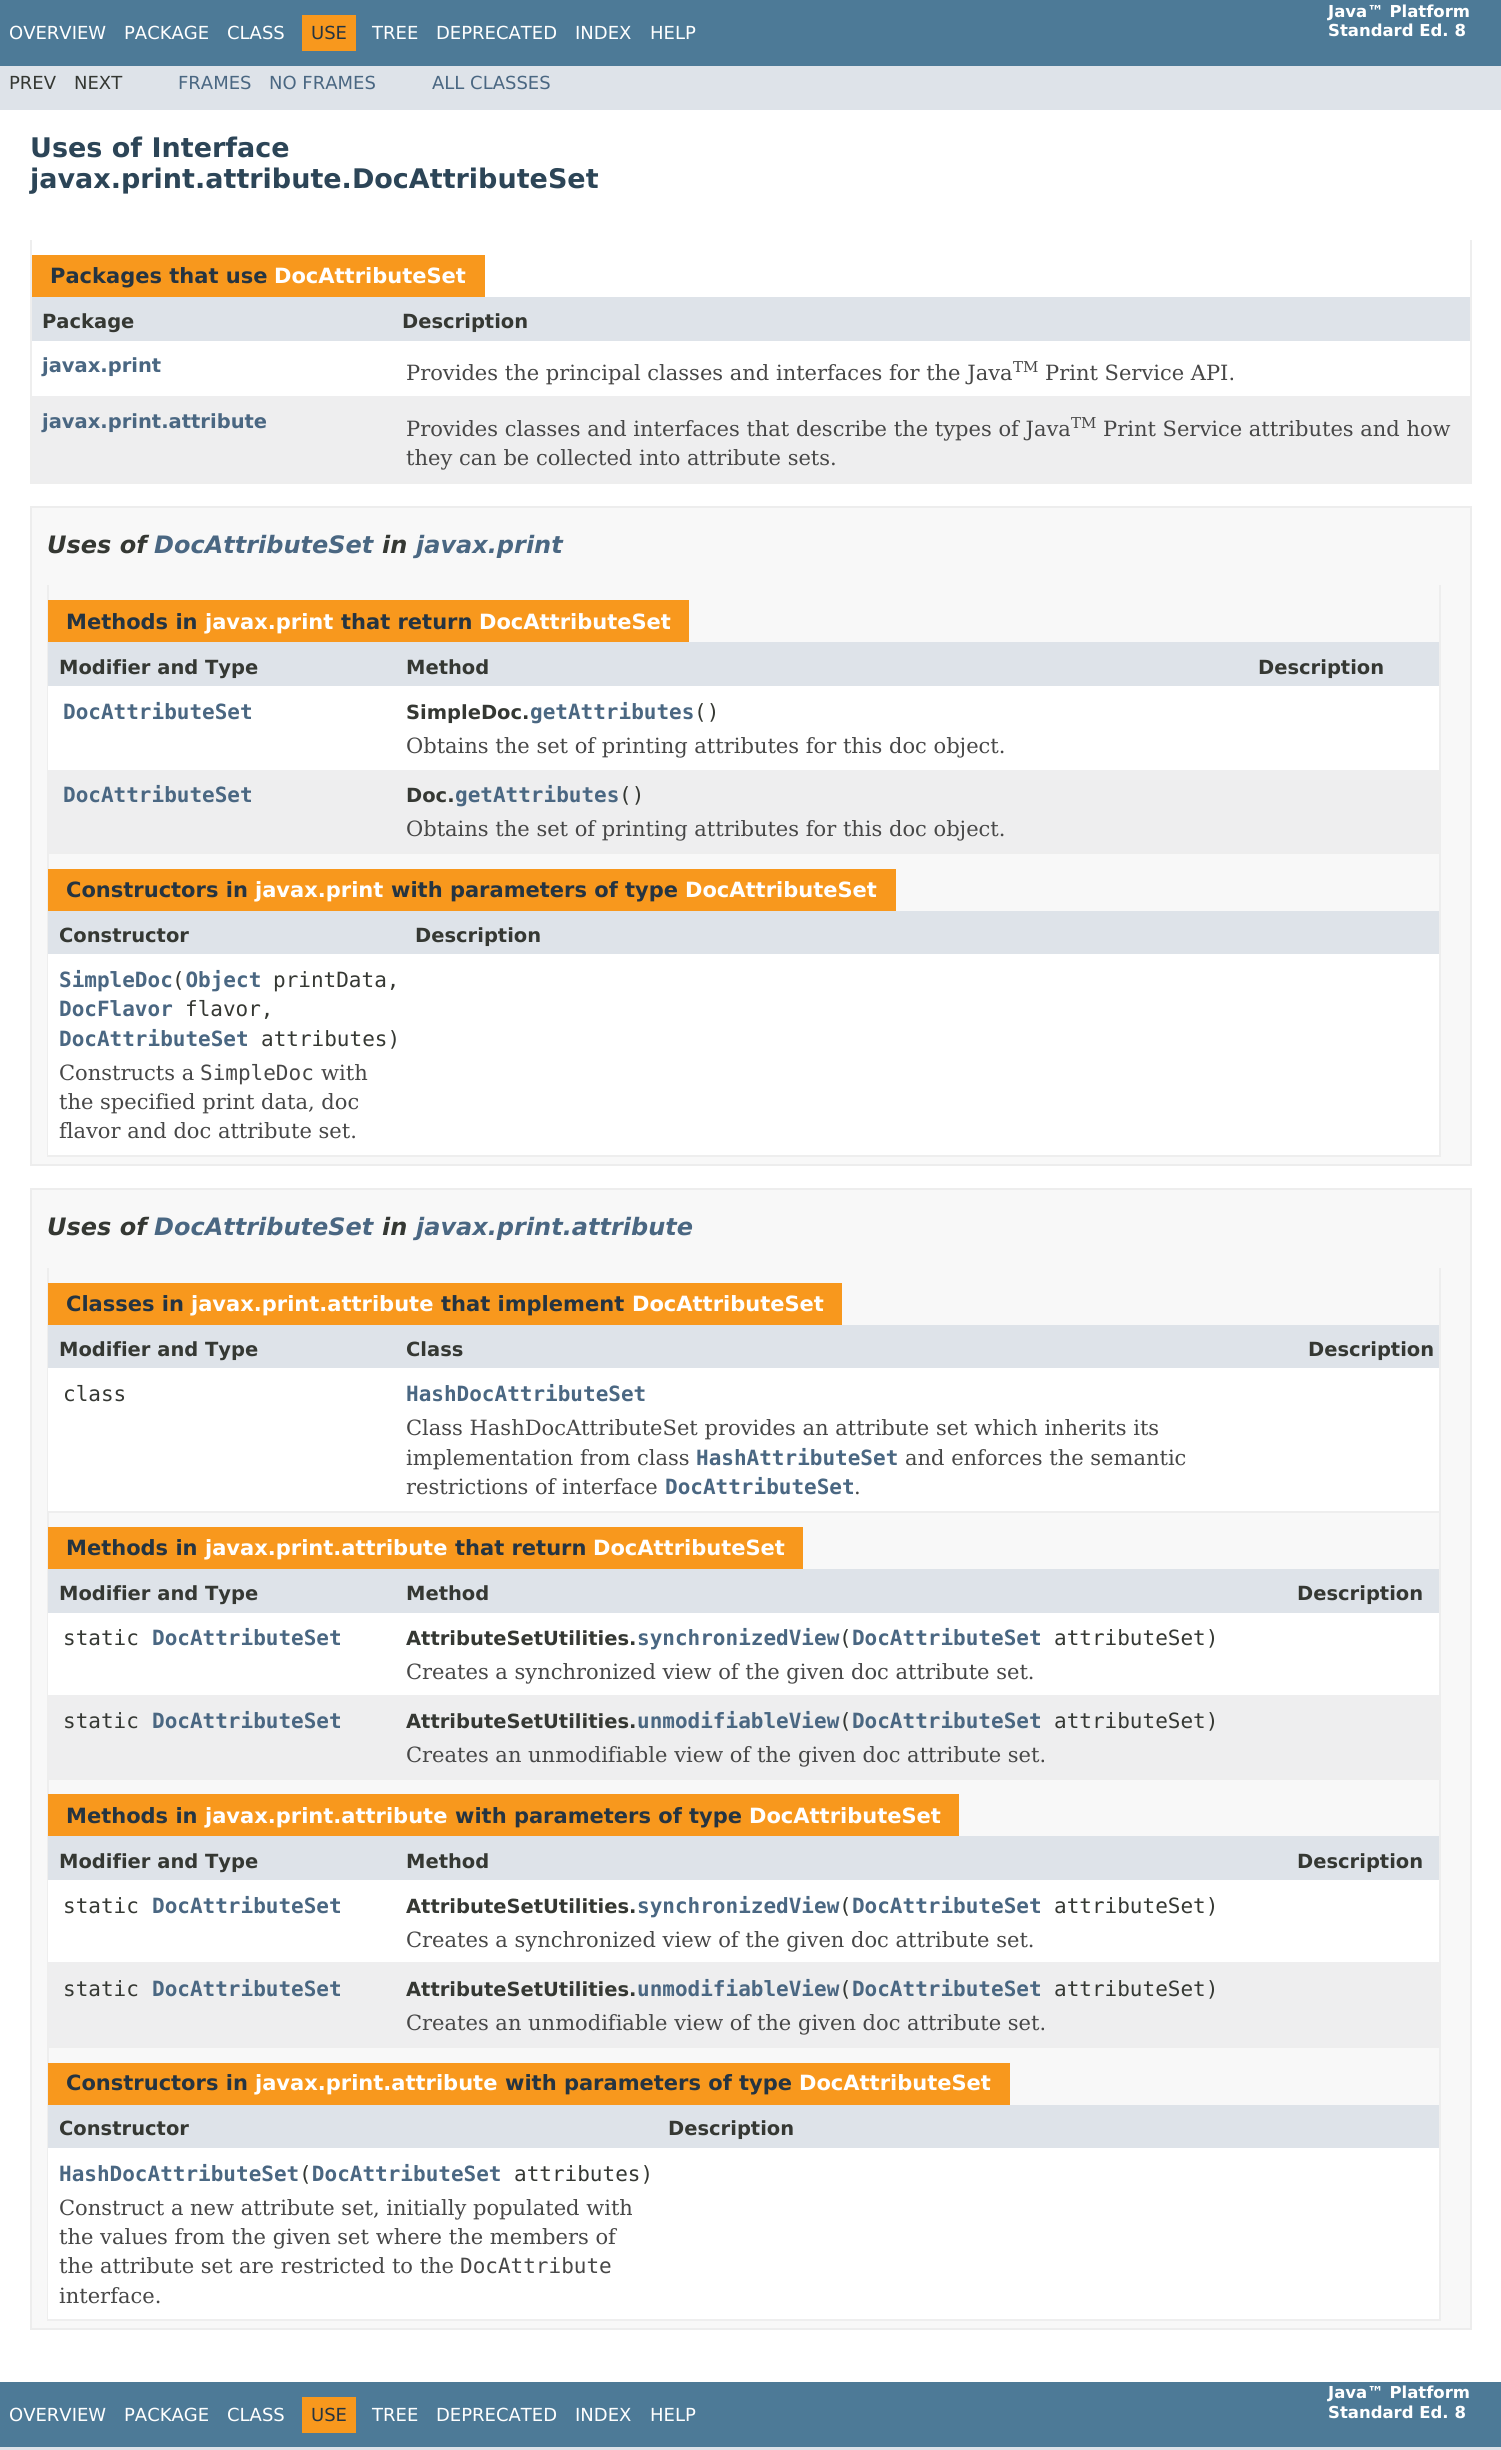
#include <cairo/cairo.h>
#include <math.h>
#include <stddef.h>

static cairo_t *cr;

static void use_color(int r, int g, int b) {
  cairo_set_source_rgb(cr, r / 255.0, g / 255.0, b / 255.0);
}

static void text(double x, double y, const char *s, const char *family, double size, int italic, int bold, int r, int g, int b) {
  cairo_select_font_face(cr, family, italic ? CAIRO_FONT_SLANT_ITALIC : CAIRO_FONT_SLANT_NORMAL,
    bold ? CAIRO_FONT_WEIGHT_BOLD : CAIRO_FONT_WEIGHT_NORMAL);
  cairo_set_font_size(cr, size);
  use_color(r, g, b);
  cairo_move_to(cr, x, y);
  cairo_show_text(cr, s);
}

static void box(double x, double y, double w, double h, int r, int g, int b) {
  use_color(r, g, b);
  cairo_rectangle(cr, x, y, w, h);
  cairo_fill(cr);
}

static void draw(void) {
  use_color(255, 255, 255);
  cairo_paint(cr);
  box(0, 0, 1501, 66, 77, 122, 151);
  box(302, 15, 54, 36, 248, 152, 29);
  box(0, 66, 1501, 44, 222, 227, 233);
  box(1470, 240, 2, 243, 238, 238, 238);
  box(30, 482, 1442, 2, 238, 238, 238);
  box(30, 240, 2, 243, 238, 238, 238);
  box(32, 255, 453, 42, 248, 152, 29);
  box(32, 297, 1438, 44, 222, 227, 233);
  box(32, 396, 1438, 86, 238, 238, 239);
  use_color(248, 248, 248);
  cairo_rectangle(cr, 31, 507, 1440, 658);
  cairo_fill_preserve(cr);
  use_color(237, 237, 237);
  cairo_stroke(cr);
  box(1439, 585, 2, 572, 238, 238, 238);
  box(47, 852, 1393, 2, 238, 238, 238);
  box(47, 585, 2, 269, 238, 238, 238);
  box(48, 600, 641, 42, 248, 152, 29);
  box(48, 642, 1391, 44, 222, 227, 233);
  box(48, 686, 1391, 84, 255, 255, 255);
  box(49, 770, 1390, 82, 238, 238, 239);
  box(47, 1155, 1393, 2, 238, 238, 238);
  box(47, 854, 2, 303, 238, 238, 238);
  box(48, 869, 848, 42, 248, 152, 29);
  box(48, 911, 1391, 43, 222, 227, 233);
  box(48, 954, 1391, 201, 255, 255, 255);
  use_color(248, 248, 248);
  cairo_rectangle(cr, 31, 1189, 1440, 1140);
  cairo_fill_preserve(cr);
  use_color(237, 237, 237);
  cairo_stroke(cr);
  box(1439, 1268, 2, 244, 238, 238, 238);
  box(47, 1511, 1393, 2, 238, 238, 238);
  box(47, 1268, 2, 244, 238, 238, 238);
  box(48, 1283, 794, 42, 248, 152, 29);
  box(48, 1325, 1391, 43, 222, 227, 233);
  box(48, 1368, 1391, 143, 255, 255, 255);
  box(1439, 1512, 2, 267, 238, 238, 238);
  box(47, 1778, 1393, 2, 238, 238, 238);
  box(47, 1512, 2, 267, 238, 238, 238);
  box(48, 1527, 755, 42, 248, 152, 29);
  box(48, 1569, 1391, 44, 222, 227, 233);
  box(48, 1613, 1391, 82, 255, 255, 255);
  box(49, 1695, 1390, 83, 238, 238, 239);
  box(1439, 1779, 2, 542, 238, 238, 238);
  box(47, 2046, 1393, 2, 238, 238, 238);
  box(47, 1779, 2, 269, 238, 238, 238);
  box(48, 1794, 911, 42, 248, 152, 29);
  box(48, 1836, 1391, 44, 222, 227, 233);
  box(48, 1880, 1391, 82, 255, 255, 255);
  box(49, 1962, 1390, 84, 238, 238, 239);
  box(47, 2319, 1393, 2, 238, 238, 238);
  box(47, 2048, 2, 273, 238, 238, 238);
  box(48, 2063, 962, 42, 248, 152, 29);
  box(48, 2105, 1391, 43, 222, 227, 233);
  box(48, 2148, 1391, 171, 255, 255, 255);
  box(0, 2382, 1501, 65, 77, 122, 151);
  box(302, 2397, 54, 36, 248, 152, 29);
  box(0, 2447, 1501, 3, 222, 227, 233);
  text(9, 39, "OVERVIEW", "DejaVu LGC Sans", 18, 0, 0, 255, 255, 255);
  text(124, 39, "PACKAGE", "DejaVu LGC Sans", 18, 0, 0, 255, 255, 255);
  text(227, 39, "CLASS", "DejaVu LGC Sans", 18, 0, 0, 255, 255, 255);
  text(311, 39, "USE", "DejaVu LGC Sans", 18, 0, 0, 37, 52, 65);
  text(372, 39, "TREE", "DejaVu LGC Sans", 18, 0, 0, 255, 255, 255);
  text(436, 39, "DEPRECATED", "DejaVu LGC Sans", 18, 0, 0, 255, 255, 255);
  text(575, 39, "INDEX", "DejaVu LGC Sans", 18, 0, 0, 255, 255, 255);
  text(650, 39, "HELP", "DejaVu LGC Sans", 18, 0, 0, 255, 255, 255);
  text(1328, 17, "Java™ Platform", "DejaVu LGC Sans", 16.5, 0, 1, 255, 255, 255);
  text(1328, 36, "Standard Ed. 8", "DejaVu LGC Sans", 16.5, 0, 1, 255, 255, 255);
  text(9, 89, "PREV", "DejaVu LGC Sans", 18, 0, 0, 53, 56, 51);
  text(74, 89, "NEXT", "DejaVu LGC Sans", 18, 0, 0, 53, 56, 51);
  text(178, 89, "FRAMES", "DejaVu LGC Sans", 18, 0, 0, 74, 103, 130);
  text(269, 89, "NO FRAMES", "DejaVu LGC Sans", 18, 0, 0, 74, 103, 130);
  text(432, 89, "ALL CLASSES", "DejaVu LGC Sans", 18, 0, 0, 74, 103, 130);
  text(30, 157, "Uses of Interface", "DejaVu LGC Sans", 27, 0, 1, 44, 69, 87);
  text(30, 188, "javax.print.attribute.DocAttributeSet", "DejaVu LGC Sans", 27, 0, 1, 44, 69, 87);
  text(50, 283, "Packages that use", "DejaVu LGC Sans", 21, 0, 1, 37, 52, 65);
  text(274, 283, "DocAttributeSet", "DejaVu LGC Sans", 21, 0, 1, 255, 255, 255);
  text(42, 328, "Package", "DejaVu LGC Sans", 19.5, 0, 1, 53, 56, 51);
  text(402, 328, "Description", "DejaVu LGC Sans", 19.5, 0, 1, 53, 56, 51);
  text(42, 372, "javax.print", "DejaVu LGC Sans", 19.5, 0, 1, 74, 103, 130);
  text(406, 380, "Provides the principal classes and interfaces for the Java", "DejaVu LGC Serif", 21, 0, 0, 71, 71, 71);
  text(1013, 372, "TM", "DejaVu LGC Serif", 15, 0, 0, 71, 71, 71);
  text(1045, 380, "Print Service API.", "DejaVu LGC Serif", 21, 0, 0, 71, 71, 71);
  text(42, 428, "javax.print.attribute", "DejaVu LGC Sans", 19.5, 0, 1, 74, 103, 130);
  text(406, 436, "Provides classes and interfaces that describe the types of Java", "DejaVu LGC Serif", 21, 0, 0, 71, 71, 71);
  text(1071, 428, "TM", "DejaVu LGC Serif", 15, 0, 0, 71, 71, 71);
  text(1103, 436, "Print Service attributes and how", "DejaVu LGC Serif", 21, 0, 0, 71, 71, 71);
  text(406, 465, "they can be collected into attribute sets.", "DejaVu LGC Serif", 21, 0, 0, 71, 71, 71);
  text(47, 553, "Uses of", "DejaVu LGC Sans", 24, 1, 1, 53, 56, 51);
  text(154, 553, "DocAttributeSet", "DejaVu LGC Sans", 24, 1, 1, 74, 103, 130);
  text(382, 553, "in", "DejaVu LGC Sans", 24, 1, 1, 53, 56, 51);
  text(416, 553, "javax.print", "DejaVu LGC Sans", 24, 1, 1, 74, 103, 130);
  text(66, 629, "Methods in", "DejaVu LGC Sans", 21, 0, 1, 37, 52, 65);
  text(205, 629, "javax.print", "DejaVu LGC Sans", 21, 0, 1, 255, 255, 255);
  text(341, 629, "that return", "DejaVu LGC Sans", 21, 0, 1, 37, 52, 65);
  text(479, 629, "DocAttributeSet", "DejaVu LGC Sans", 21, 0, 1, 255, 255, 255);
  text(59, 674, "Modifier and Type", "DejaVu LGC Sans", 19.5, 0, 1, 53, 56, 51);
  text(406, 674, "Method", "DejaVu LGC Sans", 19.5, 0, 1, 53, 56, 51);
  text(1258, 674, "Description", "DejaVu LGC Sans", 19.5, 0, 1, 53, 56, 51);
  text(63, 719, "DocAttributeSet", "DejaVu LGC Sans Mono", 21, 0, 1, 74, 103, 130);
  text(406, 719, "SimpleDoc.", "DejaVu LGC Sans", 19.5, 0, 1, 53, 56, 51);
  text(530, 719, "getAttributes", "DejaVu LGC Sans Mono", 21, 0, 1, 74, 103, 130);
  text(694, 719, "()", "DejaVu LGC Sans Mono", 21, 0, 0, 53, 56, 51);
  text(406, 753, "Obtains the set of printing attributes for this doc object.", "DejaVu LGC Serif", 21, 0, 0, 71, 71, 71);
  text(63, 802, "DocAttributeSet", "DejaVu LGC Sans Mono", 21, 0, 1, 74, 103, 130);
  text(406, 802, "Doc.", "DejaVu LGC Sans", 19.5, 0, 1, 53, 56, 51);
  text(455, 802, "getAttributes", "DejaVu LGC Sans Mono", 21, 0, 1, 74, 103, 130);
  text(619, 802, "()", "DejaVu LGC Sans Mono", 21, 0, 0, 53, 56, 51);
  text(406, 836, "Obtains the set of printing attributes for this doc object.", "DejaVu LGC Serif", 21, 0, 0, 71, 71, 71);
  text(66, 897, "Constructors in", "DejaVu LGC Sans", 21, 0, 1, 37, 52, 65);
  text(255, 897, "javax.print", "DejaVu LGC Sans", 21, 0, 1, 255, 255, 255);
  text(391, 897, "with parameters of type", "DejaVu LGC Sans", 21, 0, 1, 37, 52, 65);
  text(685, 897, "DocAttributeSet", "DejaVu LGC Sans", 21, 0, 1, 255, 255, 255);
  text(59, 942, "Constructor", "DejaVu LGC Sans", 19.5, 0, 1, 53, 56, 51);
  text(415, 942, "Description", "DejaVu LGC Sans", 19.5, 0, 1, 53, 56, 51);
  text(59, 987, "SimpleDoc Object", "DejaVu LGC Sans Mono", 21, 0, 1, 74, 103, 130);
  text(172, 987, "(", "DejaVu LGC Sans Mono", 21, 0, 0, 53, 56, 51);
  text(273, 987, "printData,", "DejaVu LGC Sans Mono", 21, 0, 0, 53, 56, 51);
  text(59, 1016, "DocFlavor", "DejaVu LGC Sans Mono", 21, 0, 1, 74, 103, 130);
  text(185, 1016, "flavor,", "DejaVu LGC Sans Mono", 21, 0, 0, 53, 56, 51);
  text(59, 1046, "DocAttributeSet", "DejaVu LGC Sans Mono", 21, 0, 1, 74, 103, 130);
  text(261, 1046, "attributes)", "DejaVu LGC Sans Mono", 21, 0, 0, 53, 56, 51);
  text(59, 1080, "Constructs a", "DejaVu LGC Serif", 21, 0, 0, 71, 71, 71);
  text(200, 1080, "SimpleDoc", "DejaVu LGC Sans Mono", 21, 0, 0, 71, 71, 71);
  text(321, 1080, "with", "DejaVu LGC Serif", 21, 0, 0, 71, 71, 71);
  text(59, 1109, "the specified print data, doc", "DejaVu LGC Serif", 21, 0, 0, 71, 71, 71);
  text(59, 1138, "flavor and doc attribute set.", "DejaVu LGC Serif", 21, 0, 0, 71, 71, 71);
  text(47, 1235, "Uses of", "DejaVu LGC Sans", 24, 1, 1, 53, 56, 51);
  text(154, 1235, "DocAttributeSet", "DejaVu LGC Sans", 24, 1, 1, 74, 103, 130);
  text(382, 1235, "in", "DejaVu LGC Sans", 24, 1, 1, 53, 56, 51);
  text(416, 1235, "javax.print.attribute", "DejaVu LGC Sans", 24, 1, 1, 74, 103, 130);
  text(66, 1311, "Classes in", "DejaVu LGC Sans", 21, 0, 1, 37, 52, 65);
  text(191, 1311, "javax.print.attribute", "DejaVu LGC Sans", 21, 0, 1, 255, 255, 255);
  text(441, 1311, "that implement", "DejaVu LGC Sans", 21, 0, 1, 37, 52, 65);
  text(632, 1311, "DocAttributeSet", "DejaVu LGC Sans", 21, 0, 1, 255, 255, 255);
  text(59, 1356, "Modifier and Type", "DejaVu LGC Sans", 19.5, 0, 1, 53, 56, 51);
  text(406, 1356, "Class", "DejaVu LGC Sans", 19.5, 0, 1, 53, 56, 51);
  text(1308, 1356, "Description", "DejaVu LGC Sans", 19.5, 0, 1, 53, 56, 51);
  text(63, 1401, "class", "DejaVu LGC Sans Mono", 21, 0, 0, 53, 56, 51);
  text(406, 1401, "HashDocAttributeSet", "DejaVu LGC Sans Mono", 21, 0, 1, 74, 103, 130);
  text(406, 1435, "Class HashDocAttributeSet provides an attribute set which inherits its", "DejaVu LGC Serif", 21, 0, 0, 71, 71, 71);
  text(406, 1465, "implementation from class", "DejaVu LGC Serif", 21, 0, 0, 71, 71, 71);
  text(696, 1465, "HashAttributeSet", "DejaVu LGC Sans Mono", 21, 0, 1, 74, 103, 130);
  text(905, 1465, "and enforces the semantic", "DejaVu LGC Serif", 21, 0, 0, 71, 71, 71);
  text(406, 1494, "restrictions of interface", "DejaVu LGC Serif", 21, 0, 0, 71, 71, 71);
  text(665, 1494, "DocAttributeSet", "DejaVu LGC Sans Mono", 21, 0, 1, 74, 103, 130);
  text(854, 1494, ".", "DejaVu LGC Serif", 21, 0, 0, 71, 71, 71);
  text(66, 1555, "Methods in", "DejaVu LGC Sans", 21, 0, 1, 37, 52, 65);
  text(205, 1555, "javax.print.attribute", "DejaVu LGC Sans", 21, 0, 1, 255, 255, 255);
  text(455, 1555, "that return", "DejaVu LGC Sans", 21, 0, 1, 37, 52, 65);
  text(593, 1555, "DocAttributeSet", "DejaVu LGC Sans", 21, 0, 1, 255, 255, 255);
  text(59, 1600, "Modifier and Type", "DejaVu LGC Sans", 19.5, 0, 1, 53, 56, 51);
  text(406, 1600, "Method", "DejaVu LGC Sans", 19.5, 0, 1, 53, 56, 51);
  text(1297, 1600, "Description", "DejaVu LGC Sans", 19.5, 0, 1, 53, 56, 51);
  text(63, 1645, "static", "DejaVu LGC Sans Mono", 21, 0, 0, 53, 56, 51);
  text(152, 1645, "DocAttributeSet", "DejaVu LGC Sans Mono", 21, 0, 1, 74, 103, 130);
  text(637, 1645, "synchronizedView DocAttributeSet", "DejaVu LGC Sans Mono", 21, 0, 1, 74, 103, 130);
  text(406, 1645, "AttributeSetUtilities.", "DejaVu LGC Sans", 19.5, 0, 1, 53, 56, 51);
  text(839, 1645, "(", "DejaVu LGC Sans Mono", 21, 0, 0, 53, 56, 51);
  text(1054, 1645, "attributeSet)", "DejaVu LGC Sans Mono", 21, 0, 0, 53, 56, 51);
  text(406, 1679, "Creates a synchronized view of the given doc attribute set.", "DejaVu LGC Serif", 21, 0, 0, 71, 71, 71);
  text(63, 1728, "static", "DejaVu LGC Sans Mono", 21, 0, 0, 53, 56, 51);
  text(152, 1728, "DocAttributeSet", "DejaVu LGC Sans Mono", 21, 0, 1, 74, 103, 130);
  text(637, 1728, "unmodifiableView DocAttributeSet", "DejaVu LGC Sans Mono", 21, 0, 1, 74, 103, 130);
  text(406, 1728, "AttributeSetUtilities.", "DejaVu LGC Sans", 19.5, 0, 1, 53, 56, 51);
  text(839, 1728, "(", "DejaVu LGC Sans Mono", 21, 0, 0, 53, 56, 51);
  text(1054, 1728, "attributeSet)", "DejaVu LGC Sans Mono", 21, 0, 0, 53, 56, 51);
  text(406, 1762, "Creates an unmodifiable view of the given doc attribute set.", "DejaVu LGC Serif", 21, 0, 0, 71, 71, 71);
  text(66, 1823, "Methods in", "DejaVu LGC Sans", 21, 0, 1, 37, 52, 65);
  text(205, 1823, "javax.print.attribute", "DejaVu LGC Sans", 21, 0, 1, 255, 255, 255);
  text(455, 1823, "with parameters of type", "DejaVu LGC Sans", 21, 0, 1, 37, 52, 65);
  text(749, 1823, "DocAttributeSet", "DejaVu LGC Sans", 21, 0, 1, 255, 255, 255);
  text(59, 1868, "Modifier and Type", "DejaVu LGC Sans", 19.5, 0, 1, 53, 56, 51);
  text(406, 1868, "Method", "DejaVu LGC Sans", 19.5, 0, 1, 53, 56, 51);
  text(1297, 1868, "Description", "DejaVu LGC Sans", 19.5, 0, 1, 53, 56, 51);
  text(63, 1913, "static", "DejaVu LGC Sans Mono", 21, 0, 0, 53, 56, 51);
  text(152, 1913, "DocAttributeSet", "DejaVu LGC Sans Mono", 21, 0, 1, 74, 103, 130);
  text(637, 1913, "synchronizedView DocAttributeSet", "DejaVu LGC Sans Mono", 21, 0, 1, 74, 103, 130);
  text(406, 1913, "AttributeSetUtilities.", "DejaVu LGC Sans", 19.5, 0, 1, 53, 56, 51);
  text(839, 1913, "(", "DejaVu LGC Sans Mono", 21, 0, 0, 53, 56, 51);
  text(1054, 1913, "attributeSet)", "DejaVu LGC Sans Mono", 21, 0, 0, 53, 56, 51);
  text(406, 1947, "Creates a synchronized view of the given doc attribute set.", "DejaVu LGC Serif", 21, 0, 0, 71, 71, 71);
  text(63, 1996, "static", "DejaVu LGC Sans Mono", 21, 0, 0, 53, 56, 51);
  text(152, 1996, "DocAttributeSet", "DejaVu LGC Sans Mono", 21, 0, 1, 74, 103, 130);
  text(637, 1996, "unmodifiableView DocAttributeSet", "DejaVu LGC Sans Mono", 21, 0, 1, 74, 103, 130);
  text(406, 1996, "AttributeSetUtilities.", "DejaVu LGC Sans", 19.5, 0, 1, 53, 56, 51);
  text(839, 1996, "(", "DejaVu LGC Sans Mono", 21, 0, 0, 53, 56, 51);
  text(1054, 1996, "attributeSet)", "DejaVu LGC Sans Mono", 21, 0, 0, 53, 56, 51);
  text(406, 2030, "Creates an unmodifiable view of the given doc attribute set.", "DejaVu LGC Serif", 21, 0, 0, 71, 71, 71);
  text(66, 2090, "Constructors in", "DejaVu LGC Sans", 21, 0, 1, 37, 52, 65);
  text(255, 2090, "javax.print.attribute", "DejaVu LGC Sans", 21, 0, 1, 255, 255, 255);
  text(505, 2090, "with parameters of type", "DejaVu LGC Sans", 21, 0, 1, 37, 52, 65);
  text(799, 2090, "DocAttributeSet", "DejaVu LGC Sans", 21, 0, 1, 255, 255, 255);
  text(59, 2135, "Constructor", "DejaVu LGC Sans", 19.5, 0, 1, 53, 56, 51);
  text(668, 2135, "Description", "DejaVu LGC Sans", 19.5, 0, 1, 53, 56, 51);
  text(59, 2181, "HashDocAttributeSet DocAttributeSet", "DejaVu LGC Sans Mono", 21, 0, 1, 74, 103, 130);
  text(299, 2181, "(", "DejaVu LGC Sans Mono", 21, 0, 0, 53, 56, 51);
  text(514, 2181, "attributes)", "DejaVu LGC Sans Mono", 21, 0, 0, 53, 56, 51);
  text(59, 2215, "Construct a new attribute set, initially populated with", "DejaVu LGC Serif", 21, 0, 0, 71, 71, 71);
  text(59, 2244, "the values from the given set where the members of", "DejaVu LGC Serif", 21, 0, 0, 71, 71, 71);
  text(59, 2273, "the attribute set are restricted to the", "DejaVu LGC Serif", 21, 0, 0, 71, 71, 71);
  text(460, 2273, "DocAttribute", "DejaVu LGC Sans Mono", 21, 0, 0, 71, 71, 71);
  text(59, 2303, "interface.", "DejaVu LGC Serif", 21, 0, 0, 71, 71, 71);
  text(9, 2421, "OVERVIEW", "DejaVu LGC Sans", 18, 0, 0, 255, 255, 255);
  text(124, 2421, "PACKAGE", "DejaVu LGC Sans", 18, 0, 0, 255, 255, 255);
  text(227, 2421, "CLASS", "DejaVu LGC Sans", 18, 0, 0, 255, 255, 255);
  text(311, 2421, "USE", "DejaVu LGC Sans", 18, 0, 0, 37, 52, 65);
  text(372, 2421, "TREE", "DejaVu LGC Sans", 18, 0, 0, 255, 255, 255);
  text(436, 2421, "DEPRECATED", "DejaVu LGC Sans", 18, 0, 0, 255, 255, 255);
  text(575, 2421, "INDEX", "DejaVu LGC Sans", 18, 0, 0, 255, 255, 255);
  text(650, 2421, "HELP", "DejaVu LGC Sans", 18, 0, 0, 255, 255, 255);
  text(1328, 2398, "Java™ Platform", "DejaVu LGC Sans", 16.5, 0, 1, 255, 255, 255);
  text(1328, 2418, "Standard Ed. 8", "DejaVu LGC Sans", 16.5, 0, 1, 255, 255, 255);
}

int main(void) {
  cairo_surface_t *surface = cairo_image_surface_create(CAIRO_FORMAT_RGB24, 1501, 2450);
  cr = cairo_create(surface);
  cairo_font_options_t *options = cairo_font_options_create();
  cairo_font_options_set_hint_metrics(options, CAIRO_HINT_METRICS_OFF);
  cairo_font_options_set_hint_style(options, CAIRO_HINT_STYLE_NONE);
  cairo_set_font_options(cr, options);
  cairo_set_miter_limit(cr, 4);
  draw();
  cairo_surface_write_to_png(surface, "out.png");
  cairo_font_options_destroy(options);
  cairo_destroy(cr);
  cairo_surface_destroy(surface);
  return 0;
}
